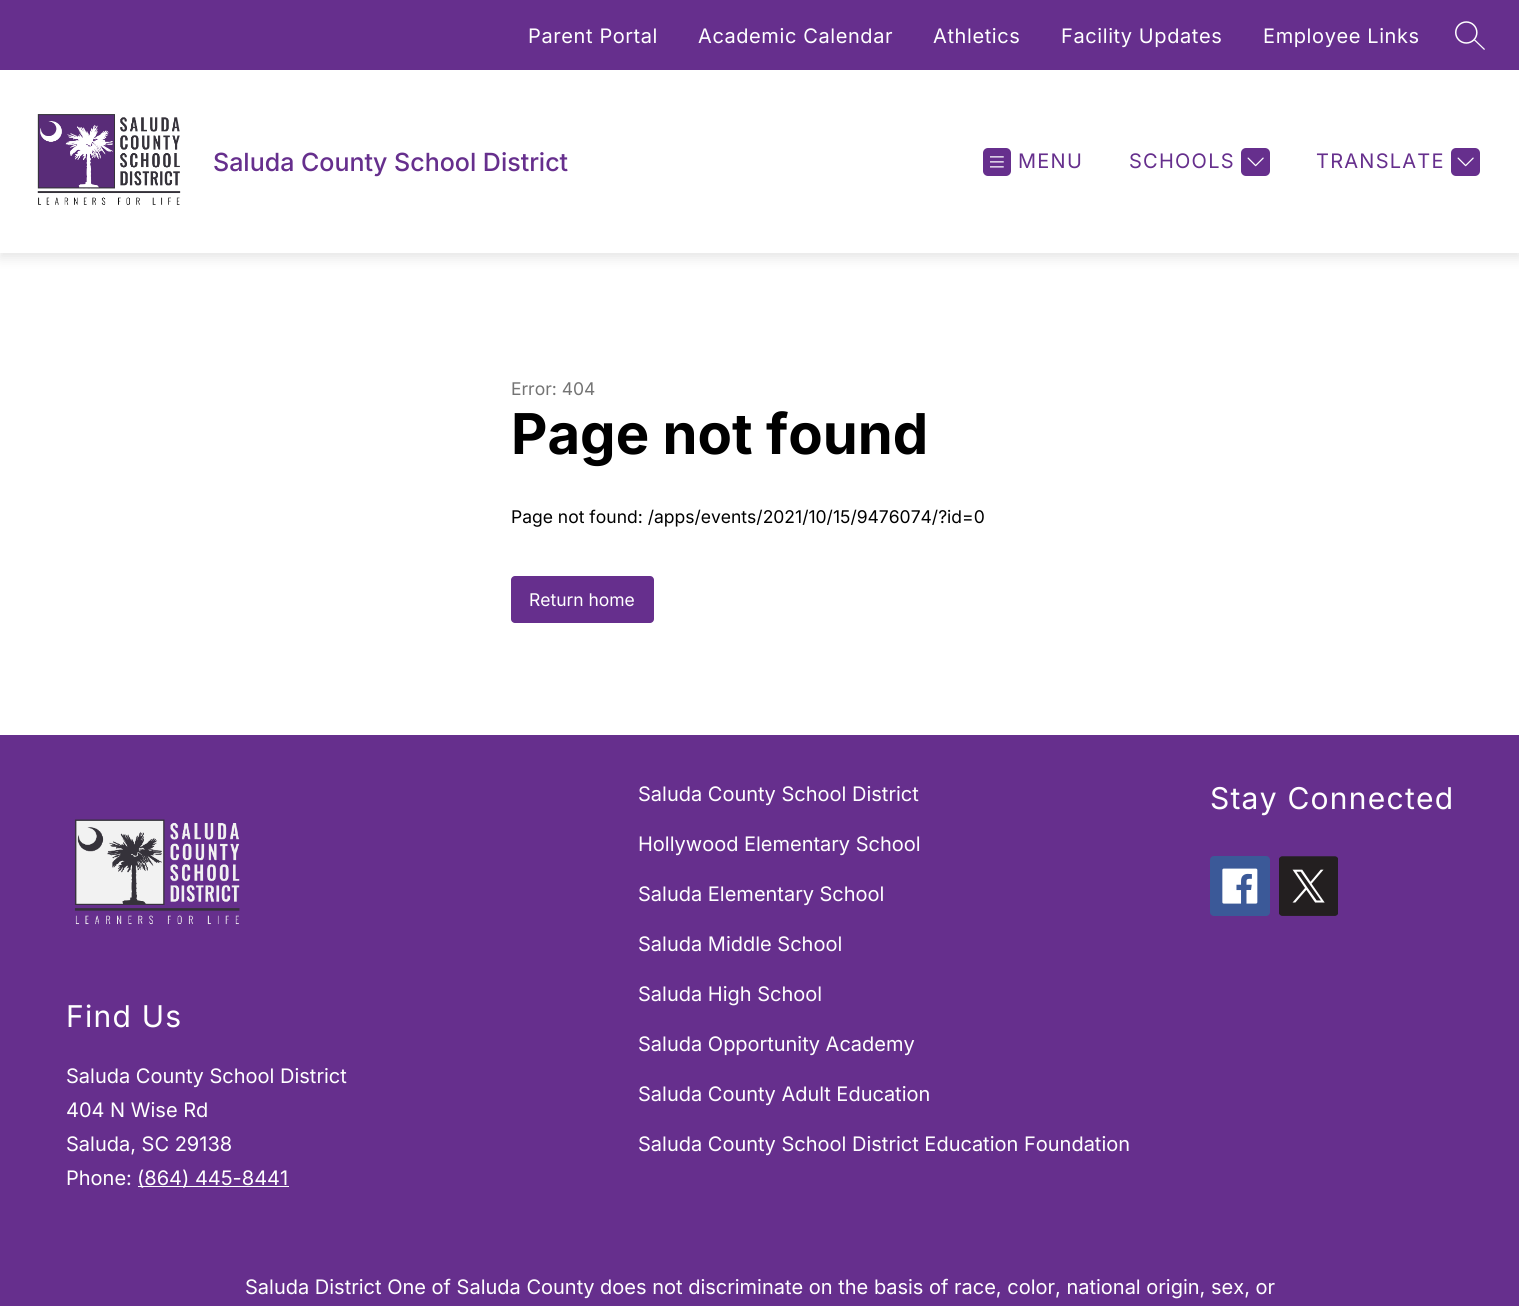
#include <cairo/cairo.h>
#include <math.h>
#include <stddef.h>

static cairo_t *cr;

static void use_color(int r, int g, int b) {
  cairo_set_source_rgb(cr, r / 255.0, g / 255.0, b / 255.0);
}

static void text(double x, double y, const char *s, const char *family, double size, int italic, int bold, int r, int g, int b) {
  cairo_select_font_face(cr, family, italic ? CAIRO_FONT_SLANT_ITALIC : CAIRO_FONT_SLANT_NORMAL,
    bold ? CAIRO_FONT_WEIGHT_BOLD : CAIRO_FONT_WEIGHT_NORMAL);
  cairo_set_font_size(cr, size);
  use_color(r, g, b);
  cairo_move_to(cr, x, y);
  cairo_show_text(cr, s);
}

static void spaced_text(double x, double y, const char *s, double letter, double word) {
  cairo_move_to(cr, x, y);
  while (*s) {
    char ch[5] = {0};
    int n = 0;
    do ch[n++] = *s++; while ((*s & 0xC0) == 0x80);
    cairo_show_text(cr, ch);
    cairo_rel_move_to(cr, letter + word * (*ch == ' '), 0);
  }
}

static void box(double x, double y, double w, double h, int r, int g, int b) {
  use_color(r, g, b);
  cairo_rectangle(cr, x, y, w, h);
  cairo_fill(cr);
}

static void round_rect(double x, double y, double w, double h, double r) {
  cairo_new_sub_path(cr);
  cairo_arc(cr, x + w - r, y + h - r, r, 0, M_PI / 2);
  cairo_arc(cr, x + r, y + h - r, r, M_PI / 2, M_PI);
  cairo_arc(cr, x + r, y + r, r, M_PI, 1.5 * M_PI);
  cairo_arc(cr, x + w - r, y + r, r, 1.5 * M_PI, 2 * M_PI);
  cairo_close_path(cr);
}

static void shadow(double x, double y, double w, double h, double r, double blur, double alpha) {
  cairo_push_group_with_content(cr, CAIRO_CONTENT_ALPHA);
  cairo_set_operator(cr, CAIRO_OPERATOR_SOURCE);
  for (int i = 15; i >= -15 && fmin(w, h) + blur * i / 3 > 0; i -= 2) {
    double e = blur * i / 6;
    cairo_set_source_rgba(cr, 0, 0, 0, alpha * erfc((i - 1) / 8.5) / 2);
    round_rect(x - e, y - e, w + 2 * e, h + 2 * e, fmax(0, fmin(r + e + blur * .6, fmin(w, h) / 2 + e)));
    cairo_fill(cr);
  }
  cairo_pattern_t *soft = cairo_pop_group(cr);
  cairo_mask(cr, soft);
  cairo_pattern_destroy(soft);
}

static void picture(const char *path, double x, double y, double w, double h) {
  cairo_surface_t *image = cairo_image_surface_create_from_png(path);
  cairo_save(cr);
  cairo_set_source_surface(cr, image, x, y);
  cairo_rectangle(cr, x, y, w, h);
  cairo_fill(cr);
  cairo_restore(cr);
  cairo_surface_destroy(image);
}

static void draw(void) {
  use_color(255, 255, 255);
  cairo_paint(cr);
  use_color(0, 0, 0);
  shadow(0, 5, 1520, 253, 0, 6, 0.1);
  box(0, 70, 1519, 183, 255, 255, 255);
  box(0, 0, 1519, 70, 102, 47, 141);
  picture("img_01.png", 1455, 21, 30, 29);
  picture("img_02.png", 37, 114, 144, 91);
  picture("img_03.png", 983, 148, 28, 28);
  picture("img_04.png", 1241, 148, 29, 28);
  picture("img_04.png", 1451, 148, 29, 28);
  round_rect(511, 576, 143, 47, 4);
  cairo_fill(cr);
  box(0, 735, 1519, 571, 102, 47, 141);
  picture("img_05.png", 1210, 856, 60, 60);
  picture("img_06.png", 1279, 856, 59, 60);
  picture("img_07.png", 74, 819, 166, 106);
  box(138, 1186, 151, 1, 255, 255, 255);
  cairo_select_font_face(cr, "Inter", CAIRO_FONT_SLANT_NORMAL, CAIRO_FONT_WEIGHT_NORMAL);
  cairo_set_font_size(cr, 20);
  spaced_text(528, 43, "Parent Portal", 0.6, 0);
  spaced_text(698, 43, "Academic Calendar", 0.6, 0);
  spaced_text(933, 43, "Athletics", 0.6, 0);
  spaced_text(1061, 43, "Facility Updates", 0.6, 0);
  spaced_text(1263, 43, "Employee Links", 0.6, 0);
  text(213, 171, "Saluda County School District", "Inter Medium", 25, 0, 0, 102, 47, 141);
  cairo_select_font_face(cr, "Inter", CAIRO_FONT_SLANT_NORMAL, CAIRO_FONT_WEIGHT_NORMAL);
  cairo_set_font_size(cr, 20);
  spaced_text(1018, 168, "MENU", 1.25, 0);
  spaced_text(1129, 168, "SCHOOLS", 1.25, 0);
  spaced_text(1316, 168, "TRANSLATE", 1.25, 0);
  text(511, 395, "Error: 404", "Inter", 17.5, 0, 0, 116, 116, 116);
  text(511, 454, "Page not found", "Inter", 56.25, 0, 1, 0, 0, 0);
  text(511, 523, "Page not found: /apps/events/2021/10/15/9476074/?id=0", "Inter", 17.5, 0, 0, 0, 0, 0);
  text(529, 606, "Return home", "Inter", 17.5, 0, 0, 255, 255, 255);
  text(638, 801, "Saluda County School District", "Inter", 20, 0, 0, 255, 255, 255);
  text(638, 851, "Hollywood Elementary School", "Inter", 20, 0, 0, 255, 255, 255);
  text(638, 901, "Saluda Elementary School", "Inter", 20, 0, 0, 255, 255, 255);
  text(638, 951, "Saluda Middle School", "Inter", 20, 0, 0, 255, 255, 255);
  text(638, 1001, "Saluda High School", "Inter", 20, 0, 0, 255, 255, 255);
  text(638, 1051, "Saluda Opportunity Academy", "Inter", 20, 0, 0, 255, 255, 255);
  text(638, 1101, "Saluda County Adult Education", "Inter", 20, 0, 0, 255, 255, 255);
  text(638, 1151, "Saluda County School District Education Foundation", "Inter", 20, 0, 0, 255, 255, 255);
  cairo_set_font_size(cr, 30);
  spaced_text(1210, 809, "Stay Connected", 1.25, 0);
  spaced_text(66, 1027, "Find Us", 1.25, 0);
  text(66, 1083, "Saluda County School District", "Inter", 20, 0, 0, 255, 255, 255);
  text(66, 1117, "404 N Wise Rd", "Inter", 20, 0, 0, 255, 255, 255);
  text(66, 1151, "Saluda, SC 29138", "Inter", 20, 0, 0, 255, 255, 255);
  text(66, 1185, "Phone:", "Inter", 20, 0, 0, 255, 255, 255);
  text(137, 1185, "(864) 445-8441", "Inter", 20, 0, 0, 255, 255, 255);
  text(245, 1294, "Saluda District One of Saluda County does not discriminate on the basis of race, color, national origin, sex, or", "Inter", 20, 0, 0, 255, 255, 255);
}

int main(void) {
  cairo_surface_t *surface = cairo_image_surface_create(CAIRO_FORMAT_RGB24, 1519, 1306);
  cr = cairo_create(surface);
  cairo_font_options_t *options = cairo_font_options_create();
  cairo_font_options_set_hint_metrics(options, CAIRO_HINT_METRICS_OFF);
  cairo_font_options_set_hint_style(options, CAIRO_HINT_STYLE_NONE);
  cairo_set_font_options(cr, options);
  cairo_set_miter_limit(cr, 4);
  draw();
  cairo_surface_write_to_png(surface, "out.png");
  cairo_font_options_destroy(options);
  cairo_destroy(cr);
  cairo_surface_destroy(surface);
  return 0;
}
